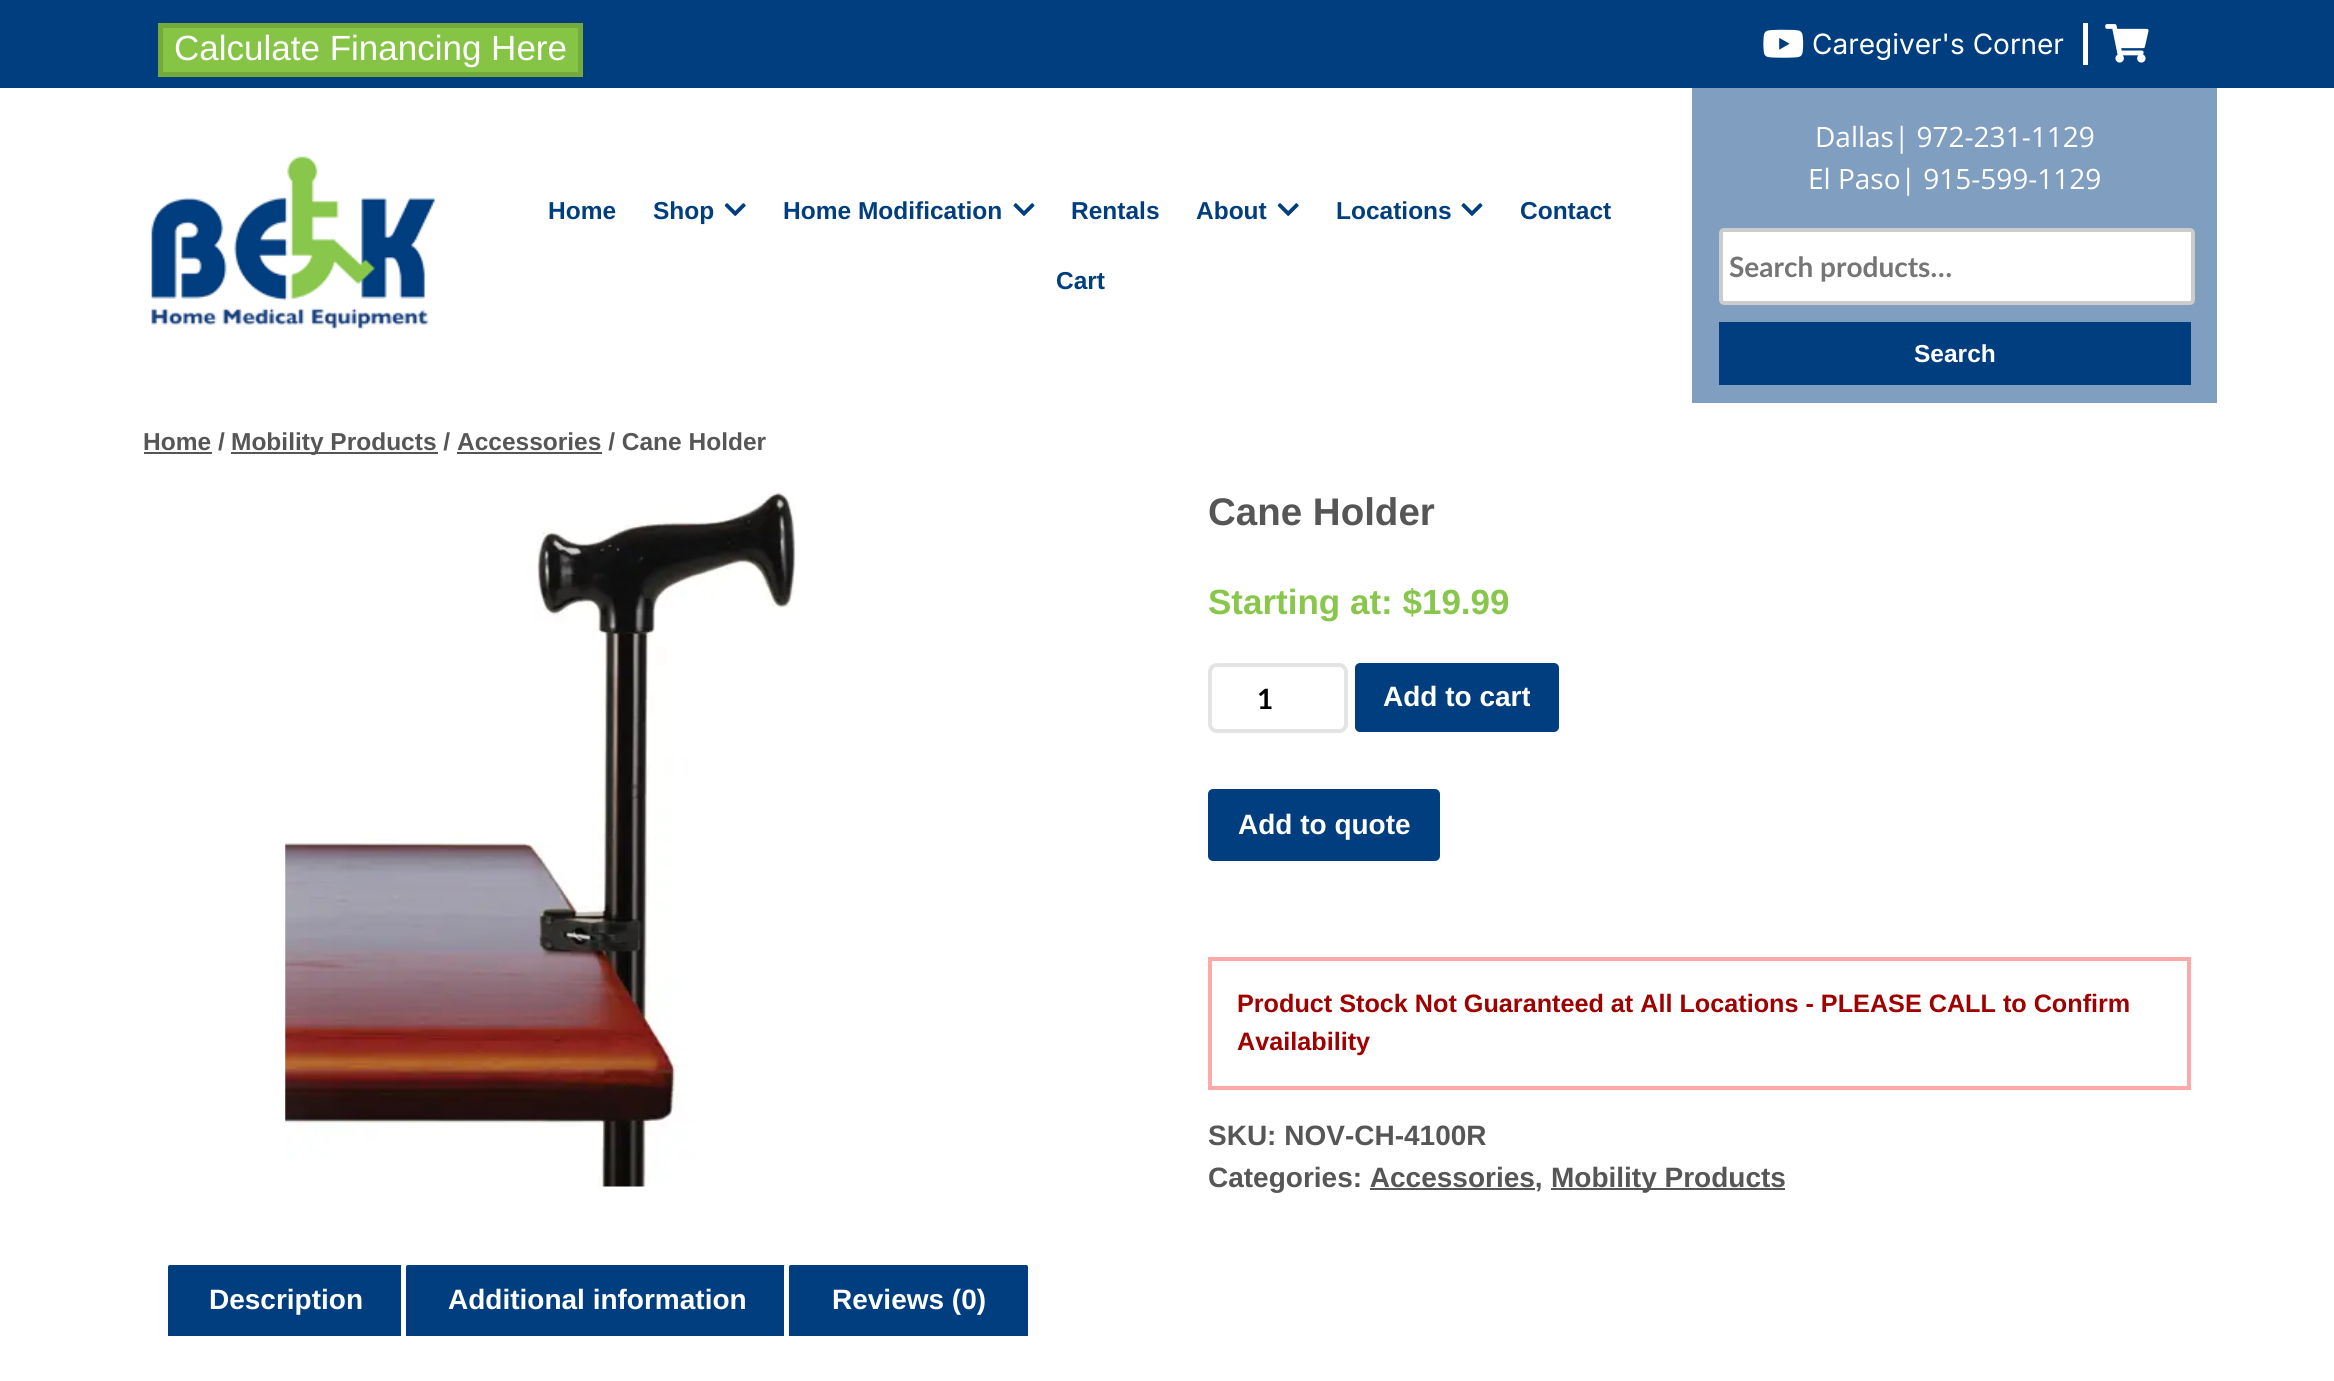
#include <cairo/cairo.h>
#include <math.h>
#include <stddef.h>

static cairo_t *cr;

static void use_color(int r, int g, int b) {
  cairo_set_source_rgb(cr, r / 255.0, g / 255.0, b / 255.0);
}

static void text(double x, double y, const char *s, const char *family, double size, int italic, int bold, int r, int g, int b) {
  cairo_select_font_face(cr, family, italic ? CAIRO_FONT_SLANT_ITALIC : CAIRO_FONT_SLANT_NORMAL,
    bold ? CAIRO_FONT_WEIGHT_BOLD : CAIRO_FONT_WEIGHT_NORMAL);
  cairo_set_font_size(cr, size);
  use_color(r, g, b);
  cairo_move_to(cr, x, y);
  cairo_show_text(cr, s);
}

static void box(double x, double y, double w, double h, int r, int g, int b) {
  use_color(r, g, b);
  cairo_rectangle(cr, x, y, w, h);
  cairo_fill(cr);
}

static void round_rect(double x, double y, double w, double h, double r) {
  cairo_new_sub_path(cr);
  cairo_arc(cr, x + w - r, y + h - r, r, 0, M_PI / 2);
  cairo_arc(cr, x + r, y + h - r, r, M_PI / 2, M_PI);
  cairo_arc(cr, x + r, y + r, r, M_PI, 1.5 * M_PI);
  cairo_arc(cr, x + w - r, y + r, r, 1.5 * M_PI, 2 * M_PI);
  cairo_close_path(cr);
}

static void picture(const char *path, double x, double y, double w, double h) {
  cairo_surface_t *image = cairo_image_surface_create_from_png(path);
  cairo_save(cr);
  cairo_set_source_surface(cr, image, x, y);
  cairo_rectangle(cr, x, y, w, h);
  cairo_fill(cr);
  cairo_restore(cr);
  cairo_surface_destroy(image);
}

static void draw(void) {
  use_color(255, 255, 255);
  cairo_paint(cr);
  box(0, 0, 2334, 88, 1, 62, 127);
  use_color(134, 196, 70);
  cairo_rectangle(cr, 160.5, 25.5, 420, 49);
  cairo_fill_preserve(cr);
  use_color(115, 170, 57);
  cairo_set_line_width(cr, 5);
  cairo_stroke(cr);
  box(2083, 23, 5, 42, 255, 255, 255);
  picture("img_01.png", 1763, 29, 41, 29);
  picture("img_02.png", 2105, 24, 44, 39);
  picture("img_03.png", 151, 156, 284, 173);
  picture("img_04.png", 724, 203, 22, 13);
  picture("img_05.png", 1013, 203, 22, 13);
  picture("img_04.png", 1277, 203, 22, 13);
  picture("img_05.png", 1461, 203, 22, 13);
  box(1692, 88, 525, 315, 128, 158, 191);
  use_color(255, 255, 255);
  round_rect(1721, 230, 472, 73, 3);
  cairo_fill_preserve(cr);
  use_color(204, 204, 204);
  cairo_set_line_width(cr, 4);
  cairo_stroke(cr);
  box(1719, 322, 472, 63, 1, 62, 127);
  box(144, 452, 68, 2, 86, 86, 86);
  box(231, 452, 207, 2, 86, 86, 86);
  box(457, 452, 145, 2, 86, 86, 86);
  picture("img_06.png", 285, 492, 511, 695);
  round_rect(1210, 665, 136, 66, 7);
  use_color(228, 228, 228);
  cairo_stroke(cr);
  use_color(1, 62, 127);
  round_rect(1355, 663, 204, 69, 5);
  cairo_fill(cr);
  round_rect(1209, 790, 230, 70, 4);
  cairo_fill_preserve(cr);
  cairo_set_line_width(cr, 2);
  cairo_stroke(cr);
  cairo_rectangle(cr, 1210, 959, 979, 129);
  use_color(255, 168, 168);
  cairo_set_line_width(cr, 4);
  cairo_stroke(cr);
  box(1370, 1188, 165, 2, 86, 86, 86);
  box(1551, 1188, 234, 2, 86, 86, 86);
  use_color(1, 62, 127);
  cairo_new_path(cr);
  cairo_move_to(cr, 170, 1262.5);
  cairo_line_to(cr, 404, 1262.5);
  cairo_curve_to(cr, 406.5, 1262.5, 408.5, 1264.5, 408.5, 1267);
  cairo_line_to(cr, 408.5, 1338.5);
  cairo_line_to(cr, 165.5, 1338.5);
  cairo_line_to(cr, 165.5, 1267);
  cairo_curve_to(cr, 165.5, 1264.5, 167.5, 1262.5, 170, 1262.5);
  cairo_close_path(cr);
  cairo_fill_preserve(cr);
  use_color(255, 255, 255);
  cairo_set_line_width(cr, 5);
  cairo_stroke(cr);
  use_color(1, 62, 127);
  cairo_new_path(cr);
  cairo_move_to(cr, 408, 1262.5);
  cairo_line_to(cr, 788, 1262.5);
  cairo_curve_to(cr, 790.5, 1262.5, 792.5, 1264.5, 792.5, 1267);
  cairo_line_to(cr, 792.5, 1338.5);
  cairo_line_to(cr, 403.5, 1338.5);
  cairo_line_to(cr, 403.5, 1267);
  cairo_curve_to(cr, 403.5, 1264.5, 405.5, 1262.5, 408, 1262.5);
  cairo_close_path(cr);
  cairo_fill_preserve(cr);
  use_color(255, 255, 255);
  cairo_stroke(cr);
  use_color(1, 62, 127);
  cairo_new_path(cr);
  cairo_move_to(cr, 791, 1262.5);
  cairo_line_to(cr, 1026, 1262.5);
  cairo_curve_to(cr, 1028.5, 1262.5, 1030.5, 1264.5, 1030.5, 1267);
  cairo_line_to(cr, 1030.5, 1338.5);
  cairo_line_to(cr, 786.5, 1338.5);
  cairo_line_to(cr, 786.5, 1267);
  cairo_curve_to(cr, 786.5, 1264.5, 788.5, 1262.5, 791, 1262.5);
  cairo_close_path(cr);
  cairo_fill_preserve(cr);
  use_color(255, 255, 255);
  cairo_stroke(cr);
  text(174, 60, "Calculate Financing Here", "Liberation Sans", 35, 0, 0, 255, 255, 255);
  text(1812, 54, "Caregiver's Corner", "Inter", 28, 0, 0, 255, 255, 255);
  text(548, 219, "Home", "Liberation Sans", 24.5, 0, 1, 1, 62, 127);
  text(653, 219, "Shop", "Liberation Sans", 24.5, 0, 1, 1, 62, 127);
  text(783, 219, "Home Modification", "Liberation Sans", 24.5, 0, 1, 1, 62, 127);
  text(1071, 219, "Rentals", "Liberation Sans", 24.5, 0, 1, 1, 62, 127);
  text(1196, 219, "About", "Liberation Sans", 24.5, 0, 1, 1, 62, 127);
  text(1336, 219, "Locations", "Liberation Sans", 24.5, 0, 1, 1, 62, 127);
  text(1520, 219, "Contact", "Liberation Sans", 24.5, 0, 1, 1, 62, 127);
  text(1056, 289, "Cart", "Liberation Sans", 24.5, 0, 1, 1, 62, 127);
  text(1815, 147, "Dallas| 972-231-1129", "Open Sans", 28, 0, 0, 255, 255, 255);
  text(1808, 189, "El Paso| 915-599-1129", "Open Sans", 28, 0, 0, 255, 255, 255);
  text(1729, 277, "Search products…", "Lato", 28, 0, 1, 117, 117, 117);
  text(1914, 362, "Search", "Liberation Sans", 24.5, 0, 1, 255, 255, 255);
  text(143, 450, "Home /", "Liberation Sans", 24.5, 0, 1, 86, 86, 86);
  text(231, 450, "Mobility Products / Accessories / Cane Holder", "Liberation Sans", 24.5, 0, 1, 86, 86, 86);
  text(1208, 525, "Cane Holder", "Liberation Sans", 38.5, 0, 1, 86, 86, 86);
  text(1208, 614, "Starting at: $19.99", "Liberation Sans", 35, 0, 1, 137, 199, 76);
  text(1257, 709, "1", "Lato", 28, 0, 1, 0, 0, 0);
  text(1383, 706, "Add to cart", "Liberation Sans", 28, 0, 1, 255, 255, 255);
  text(1238, 834, "Add to quote", "Liberation Sans", 28, 0, 1, 255, 255, 255);
  text(1237, 1012, "Product Stock Not Guaranteed at All Locations - PLEASE CALL to Confirm", "Liberation Sans", 25.2, 0, 1, 159, 0, 0);
  text(1237, 1050, "Availability", "Liberation Sans", 25.2, 0, 1, 159, 0, 0);
  text(1208, 1145, "SKU: NOV-CH-4100R", "Liberation Sans", 28, 0, 1, 86, 86, 86);
  text(1208, 1187, "Categories: Accessories,", "Liberation Sans", 28, 0, 1, 86, 86, 86);
  text(1551, 1187, "Mobility Products", "Liberation Sans", 28, 0, 1, 86, 86, 86);
  text(209, 1309, "Description", "Liberation Sans", 28, 0, 1, 255, 255, 255);
  text(448, 1309, "Additional information", "Liberation Sans", 28, 0, 1, 255, 255, 255);
  text(832, 1309, "Reviews (0)", "Liberation Sans", 28, 0, 1, 255, 255, 255);
}

int main(void) {
  cairo_surface_t *surface = cairo_image_surface_create(CAIRO_FORMAT_RGB24, 2334, 1381);
  cr = cairo_create(surface);
  cairo_font_options_t *options = cairo_font_options_create();
  cairo_font_options_set_hint_metrics(options, CAIRO_HINT_METRICS_OFF);
  cairo_font_options_set_hint_style(options, CAIRO_HINT_STYLE_NONE);
  cairo_set_font_options(cr, options);
  cairo_set_miter_limit(cr, 4);
  draw();
  cairo_surface_write_to_png(surface, "out.png");
  cairo_font_options_destroy(options);
  cairo_destroy(cr);
  cairo_surface_destroy(surface);
  return 0;
}
